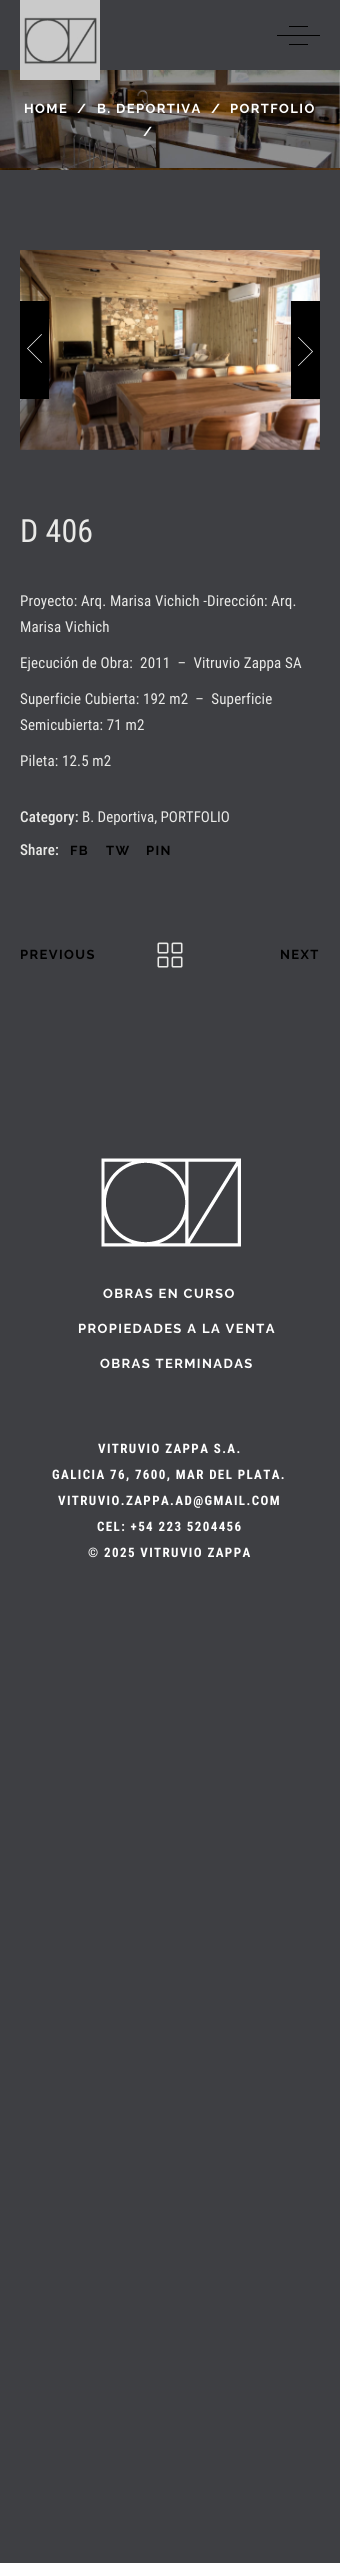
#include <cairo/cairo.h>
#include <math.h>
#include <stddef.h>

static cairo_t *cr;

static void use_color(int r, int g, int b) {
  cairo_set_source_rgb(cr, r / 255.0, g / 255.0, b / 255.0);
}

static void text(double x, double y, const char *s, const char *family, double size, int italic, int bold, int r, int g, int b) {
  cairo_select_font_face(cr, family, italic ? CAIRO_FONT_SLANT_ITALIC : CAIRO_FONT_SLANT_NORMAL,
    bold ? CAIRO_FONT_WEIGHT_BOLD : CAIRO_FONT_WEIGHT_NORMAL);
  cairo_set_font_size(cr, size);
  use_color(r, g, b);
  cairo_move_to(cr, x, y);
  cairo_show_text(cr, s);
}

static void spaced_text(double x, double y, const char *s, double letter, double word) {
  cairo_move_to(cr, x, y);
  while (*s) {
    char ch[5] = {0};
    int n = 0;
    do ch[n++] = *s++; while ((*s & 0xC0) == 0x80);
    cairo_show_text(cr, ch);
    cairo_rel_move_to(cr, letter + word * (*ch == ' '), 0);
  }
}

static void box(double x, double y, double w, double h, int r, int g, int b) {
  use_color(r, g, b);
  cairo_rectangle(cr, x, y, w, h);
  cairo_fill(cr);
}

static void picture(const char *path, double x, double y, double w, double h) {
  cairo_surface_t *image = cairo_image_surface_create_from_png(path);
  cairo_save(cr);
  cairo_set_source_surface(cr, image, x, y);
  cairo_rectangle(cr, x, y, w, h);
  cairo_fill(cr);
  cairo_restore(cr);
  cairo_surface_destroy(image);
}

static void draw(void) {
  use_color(62, 63, 67);
  cairo_paint(cr);
  picture("img_03.png", 0, 70, 340, 98);
  picture("img_01.png", 20, 0, 80, 80);
  box(289, 26, 19, 1, 0, 0, 0);
  box(277, 35, 43, 1, 0, 0, 0);
  box(289, 44, 19, 1, 0, 0, 0);
  picture("img_02.png", 0, 168, 340, 2);
  picture("img_04.png", 20, 250, 300, 200);
  box(20, 301, 29, 98, 0, 0, 0);
  use_color(255, 255, 255);
  cairo_new_path(cr);
  cairo_move_to(cr, 41.5, 334);
  cairo_line_to(cr, 42, 334.5);
  cairo_line_to(cr, 28, 348.5);
  cairo_line_to(cr, 42, 362.5);
  cairo_line_to(cr, 41.5, 363);
  cairo_line_to(cr, 27, 348.5);
  cairo_close_path(cr);
  cairo_fill(cr);
  box(291, 301, 29, 98, 0, 0, 0);
  use_color(255, 255, 255);
  cairo_new_path(cr);
  cairo_move_to(cr, 298.5, 366);
  cairo_line_to(cr, 298, 365.5);
  cairo_line_to(cr, 312, 351.5);
  cairo_line_to(cr, 298, 337.5);
  cairo_line_to(cr, 298.5, 337);
  cairo_line_to(cr, 313, 351.5);
  cairo_close_path(cr);
  cairo_fill(cr);
  picture("img_05.png", 157, 942, 26, 26);
  picture("img_06.png", 101, 1158, 140, 89);
  cairo_select_font_face(cr, "Raleway", CAIRO_FONT_SLANT_NORMAL, CAIRO_FONT_WEIGHT_BOLD);
  cairo_set_font_size(cr, 13);
  spaced_text(24, 113, "HOME", 1.4, 0);
  spaced_text(77, 113, "/", 1.4, 0);
  spaced_text(97, 113, "B. DEPORTIVA", 1.4, 0);
  spaced_text(211, 113, "/", 1.4, 0);
  spaced_text(230, 113, "PORTFOLIO", 1.4, 0);
  spaced_text(143, 136, "/", 1.4, 0);
  text(20, 542, "D 406", "Roboto Condensed", 32, 0, 0, 233, 233, 231);
  cairo_set_font_size(cr, 15);
  spaced_text(20, 606, "Proyecto: Arq. Marisa Vichich -Dirección: Arq.", 0.15, 0);
  spaced_text(20, 632, "Marisa Vichich", 0.15, 0);
  spaced_text(20, 668, "Ejecución de Obra:  2011  –  Vitruvio Zappa SA", 0.15, 0);
  spaced_text(20, 704, "Superficie Cubierta: 192 m2  –  Superficie", 0.15, 0);
  spaced_text(20, 730, "Semicubierta: 71 m2", 0.15, 0);
  spaced_text(20, 766, "Pileta: 12.5 m2", 0.15, 0);
  cairo_select_font_face(cr, "Roboto Condensed Medium", CAIRO_FONT_SLANT_NORMAL, CAIRO_FONT_WEIGHT_NORMAL);
  spaced_text(20, 822, "Category:", 0.15, 0);
  text(82, 822, "B. Deportiva, PORTFOLIO", "Roboto Condensed", 15, 0, 0, 233, 233, 231);
  cairo_select_font_face(cr, "Roboto Condensed Medium", CAIRO_FONT_SLANT_NORMAL, CAIRO_FONT_WEIGHT_NORMAL);
  spaced_text(20, 855, "Share:", 0.15, 0);
  cairo_select_font_face(cr, "Raleway", CAIRO_FONT_SLANT_NORMAL, CAIRO_FONT_WEIGHT_BOLD);
  cairo_set_font_size(cr, 13);
  use_color(0, 0, 0);
  spaced_text(70, 855, "FB", 1.4, 0);
  spaced_text(106, 855, "TW", 1.4, 0);
  spaced_text(146, 855, "PIN", 1.4, 0);
  spaced_text(20, 959, "PREVIOUS", 1.4, 0);
  spaced_text(280, 959, "NEXT", 1.4, 0);
  use_color(255, 255, 255);
  spaced_text(103, 1298, "OBRAS EN CURSO", 1.4, 0);
  spaced_text(78, 1333, "PROPIEDADES A LA VENTA", 1.4, 0);
  spaced_text(100, 1368, "OBRAS TERMINADAS", 1.4, 0);
  cairo_select_font_face(cr, "Roboto Condensed", CAIRO_FONT_SLANT_NORMAL, CAIRO_FONT_WEIGHT_BOLD);
  spaced_text(98, 1453, "VITRUVIO ZAPPA S.A.", 1.4, 0);
  spaced_text(52, 1479, "GALICIA 76, 7600, MAR DEL PLATA.", 1.4, 0);
  spaced_text(58, 1505, "VITRUVIO.ZAPPA.AD@GMAIL.COM", 1.4, 0);
  spaced_text(97, 1531, "CEL: +54 223 5204456", 1.4, 0);
  spaced_text(88, 1557, "© 2025 VITRUVIO ZAPPA", 1.4, 0);
}

int main(void) {
  cairo_surface_t *surface = cairo_image_surface_create(CAIRO_FORMAT_RGB24, 340, 2563);
  cr = cairo_create(surface);
  cairo_font_options_t *options = cairo_font_options_create();
  cairo_font_options_set_hint_metrics(options, CAIRO_HINT_METRICS_OFF);
  cairo_font_options_set_hint_style(options, CAIRO_HINT_STYLE_NONE);
  cairo_set_font_options(cr, options);
  cairo_set_miter_limit(cr, 4);
  draw();
  cairo_surface_write_to_png(surface, "out.png");
  cairo_font_options_destroy(options);
  cairo_destroy(cr);
  cairo_surface_destroy(surface);
  return 0;
}
